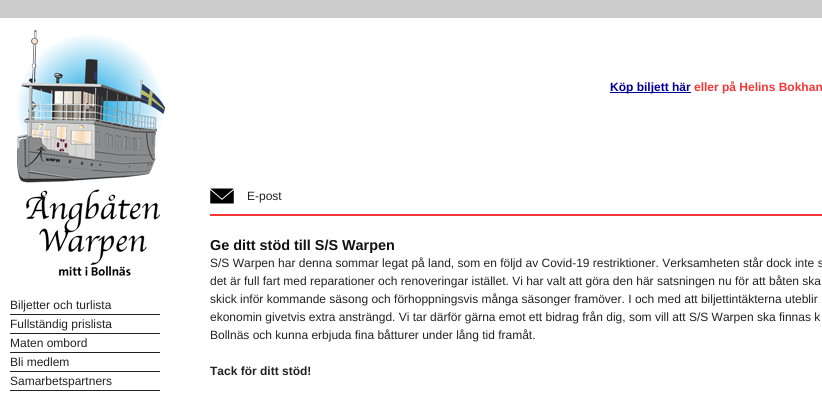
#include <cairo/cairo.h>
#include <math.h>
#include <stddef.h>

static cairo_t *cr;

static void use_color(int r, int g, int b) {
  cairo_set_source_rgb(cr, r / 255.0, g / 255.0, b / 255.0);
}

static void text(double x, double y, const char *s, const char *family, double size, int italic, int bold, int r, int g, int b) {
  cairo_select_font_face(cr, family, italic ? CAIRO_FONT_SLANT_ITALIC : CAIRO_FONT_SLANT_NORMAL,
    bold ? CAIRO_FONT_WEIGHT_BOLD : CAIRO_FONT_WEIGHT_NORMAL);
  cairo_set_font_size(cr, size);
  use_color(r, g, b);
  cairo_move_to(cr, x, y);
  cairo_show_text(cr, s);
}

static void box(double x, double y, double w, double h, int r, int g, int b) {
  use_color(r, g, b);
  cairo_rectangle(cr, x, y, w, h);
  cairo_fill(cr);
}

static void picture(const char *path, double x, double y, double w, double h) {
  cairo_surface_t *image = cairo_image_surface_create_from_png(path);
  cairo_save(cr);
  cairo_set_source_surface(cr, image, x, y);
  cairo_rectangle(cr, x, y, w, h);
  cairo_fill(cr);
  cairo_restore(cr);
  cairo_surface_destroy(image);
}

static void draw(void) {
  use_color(204, 204, 204);
  cairo_paint(cr);
  box(0, 18, 822, 376, 255, 255, 255);
  picture("img_01.png", 16, 30, 150, 246);
  box(610, 92, 81, 1, 0, 0, 153);
  box(210, 214, 612, 2, 245, 54, 54);
  picture("img_02.png", 210, 188, 24, 16);
  box(10, 314, 150, 1, 34, 34, 34);
  box(10, 333, 150, 1, 34, 34, 34);
  box(10, 352, 150, 1, 34, 34, 34);
  box(10, 371, 150, 1, 34, 34, 34);
  box(10, 390, 150, 1, 34, 34, 34);
  text(610, 91, "Köp biljett här", "Liberation Sans", 12, 0, 1, 0, 0, 153);
  text(694, 91, "eller på Helins Bokhan", "Liberation Sans", 12, 0, 1, 245, 54, 54);
  text(247, 200, "E-post", "Liberation Sans", 12, 0, 0, 34, 34, 34);
  text(10, 309, "Biljetter och turlista", "Liberation Sans", 12, 0, 0, 34, 34, 34);
  text(10, 328, "Fullständig prislista", "Liberation Sans", 12, 0, 0, 34, 34, 34);
  text(10, 347, "Maten ombord", "Liberation Sans", 12, 0, 0, 34, 34, 34);
  text(10, 366, "Bli medlem", "Liberation Sans", 12, 0, 0, 34, 34, 34);
  text(10, 385, "Samarbetspartners", "Liberation Sans", 12, 0, 0, 34, 34, 34);
  text(210, 250, "Ge ditt stöd till S/S Warpen", "Liberation Sans", 14.4, 0, 1, 17, 17, 17);
  text(210, 267, "S/S Warpen har denna sommar legat på land, som en följd av Covid-19 restriktioner. Verksamheten står dock inte s", "Liberation Sans", 12, 0, 0, 34, 34, 34);
  text(210, 285, "det är full fart med reparationer och renoveringar istället. Vi har valt att göra den här satsningen nu för att båten ska", "Liberation Sans", 12, 0, 0, 34, 34, 34);
  text(210, 303, "skick inför kommande säsong och förhoppningsvis många säsonger framöver. I och med att biljettintäkterna uteblir", "Liberation Sans", 12, 0, 0, 34, 34, 34);
  text(210, 321, "ekonomin givetvis extra ansträngd. Vi tar därför gärna emot ett bidrag från dig, som vill att S/S Warpen ska finnas k", "Liberation Sans", 12, 0, 0, 34, 34, 34);
  text(210, 339, "Bollnäs och kunna erbjuda fina båtturer under lång tid framåt.", "Liberation Sans", 12, 0, 0, 34, 34, 34);
  text(210, 375, "Tack för ditt stöd!", "Liberation Sans", 12, 0, 1, 34, 34, 34);
}

int main(void) {
  cairo_surface_t *surface = cairo_image_surface_create(CAIRO_FORMAT_RGB24, 822, 394);
  cr = cairo_create(surface);
  cairo_font_options_t *options = cairo_font_options_create();
  cairo_font_options_set_hint_metrics(options, CAIRO_HINT_METRICS_OFF);
  cairo_font_options_set_hint_style(options, CAIRO_HINT_STYLE_NONE);
  cairo_set_font_options(cr, options);
  cairo_set_miter_limit(cr, 4);
  draw();
  cairo_surface_write_to_png(surface, "out.png");
  cairo_font_options_destroy(options);
  cairo_destroy(cr);
  cairo_surface_destroy(surface);
  return 0;
}
